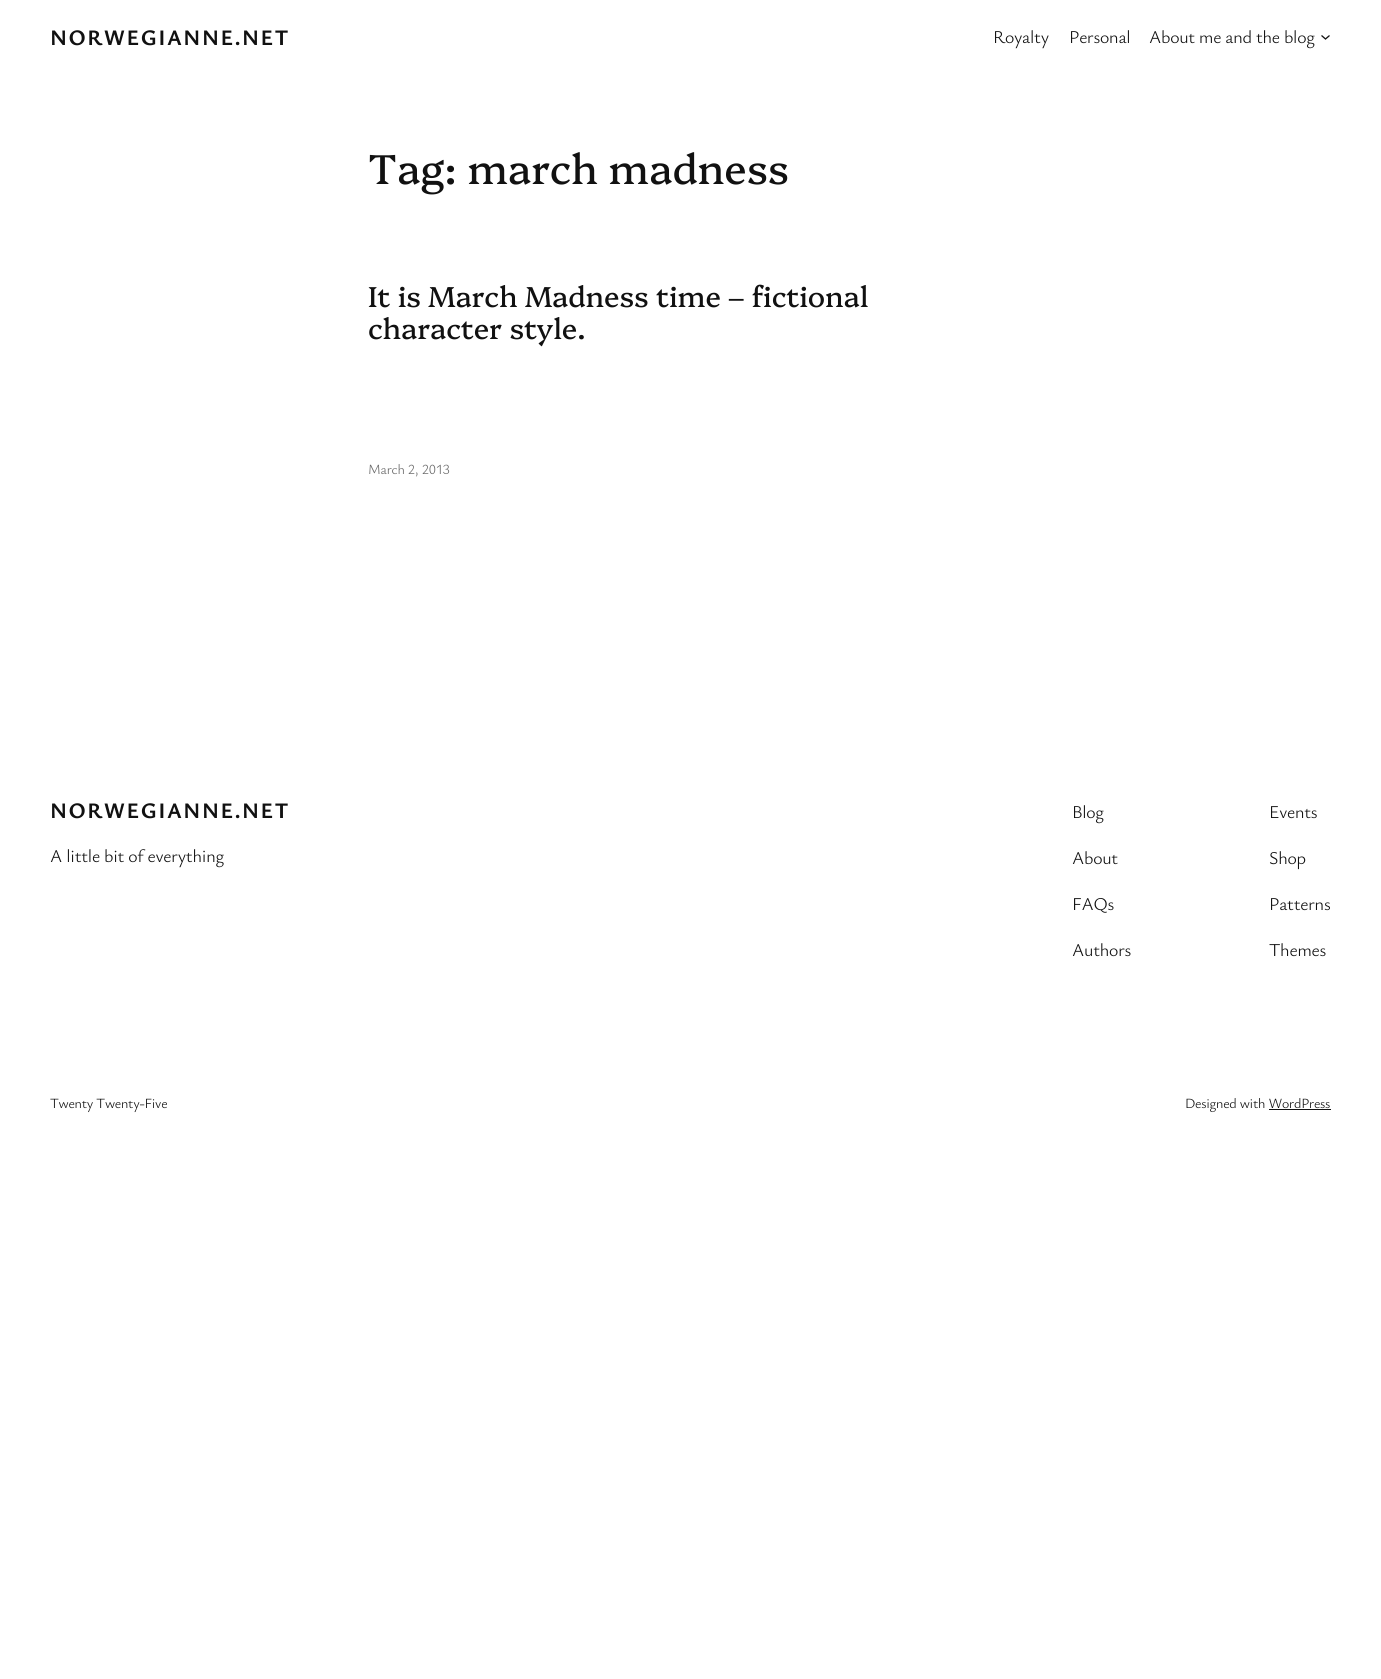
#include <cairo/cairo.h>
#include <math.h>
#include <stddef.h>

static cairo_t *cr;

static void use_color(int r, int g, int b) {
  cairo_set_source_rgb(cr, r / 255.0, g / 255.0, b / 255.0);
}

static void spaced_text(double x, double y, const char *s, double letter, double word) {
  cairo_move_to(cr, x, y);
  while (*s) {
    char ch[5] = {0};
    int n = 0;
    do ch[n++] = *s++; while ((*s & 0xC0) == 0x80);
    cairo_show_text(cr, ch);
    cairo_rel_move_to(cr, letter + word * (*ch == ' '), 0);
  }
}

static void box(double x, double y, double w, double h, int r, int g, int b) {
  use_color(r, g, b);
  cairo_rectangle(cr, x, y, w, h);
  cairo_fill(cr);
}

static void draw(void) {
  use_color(255, 255, 255);
  cairo_paint(cr);
  cairo_new_path(cr);
  cairo_move_to(cr, 1321.5, 35.5);
  cairo_line_to(cr, 1325.5, 39);
  cairo_line_to(cr, 1329.5, 35.5);
  use_color(17, 17, 17);
  cairo_set_line_width(cr, 1.3);
  cairo_stroke(cr);
  box(1269, 1109, 62, 1, 17, 17, 17);
  cairo_select_font_face(cr, "Ysabeau Office", CAIRO_FONT_SLANT_NORMAL, CAIRO_FONT_WEIGHT_BOLD);
  cairo_set_font_size(cr, 22);
  spaced_text(50, 45, "NORWEGIANNE.NET", 1.5, 0);
  cairo_select_font_face(cr, "Ysabeau Office Light", CAIRO_FONT_SLANT_NORMAL, CAIRO_FONT_WEIGHT_NORMAL);
  cairo_set_font_size(cr, 18);
  spaced_text(993, 43, "Royalty", -0.25, 0);
  spaced_text(1069, 43, "Personal", -0.25, 0);
  spaced_text(1149, 43, "About me and the blog", -0.25, 0);
  cairo_select_font_face(cr, "Platypi", CAIRO_FONT_SLANT_NORMAL, CAIRO_FONT_WEIGHT_NORMAL);
  cairo_set_font_size(cr, 41.6);
  spaced_text(368, 184, "Tag: march madness", -0.1, 0);
  cairo_set_font_size(cr, 28.75);
  spaced_text(368, 307, "It is March Madness time – fictional", -0.1, 0);
  spaced_text(368, 339, "character style.", -0.1, 0);
  cairo_select_font_face(cr, "Ysabeau Office Light", CAIRO_FONT_SLANT_NORMAL, CAIRO_FONT_WEIGHT_NORMAL);
  cairo_set_font_size(cr, 14);
  use_color(104, 104, 104);
  spaced_text(368, 474, "March 2, 2013", -0.25, 0);
  cairo_select_font_face(cr, "Ysabeau Office", CAIRO_FONT_SLANT_NORMAL, CAIRO_FONT_WEIGHT_BOLD);
  cairo_set_font_size(cr, 22);
  use_color(17, 17, 17);
  spaced_text(50, 818, "NORWEGIANNE.NET", 1.5, 0);
  cairo_select_font_face(cr, "Ysabeau Office Light", CAIRO_FONT_SLANT_NORMAL, CAIRO_FONT_WEIGHT_NORMAL);
  cairo_set_font_size(cr, 18);
  spaced_text(50, 862, "A little bit of everything", -0.25, 0);
  spaced_text(1072, 818, "Blog", -0.25, 0);
  spaced_text(1072, 864, "About", -0.25, 0);
  spaced_text(1072, 910, "FAQs", -0.25, 0);
  spaced_text(1072, 956, "Authors", -0.25, 0);
  spaced_text(1269, 818, "Events", -0.25, 0);
  spaced_text(1269, 864, "Shop", -0.25, 0);
  spaced_text(1269, 910, "Patterns", -0.25, 0);
  spaced_text(1269, 956, "Themes", -0.25, 0);
  cairo_set_font_size(cr, 14);
  spaced_text(50, 1108, "Twenty Twenty-Five", -0.25, 0);
  spaced_text(1185, 1108, "Designed with WordPress", -0.25, 0);
}

int main(void) {
  cairo_surface_t *surface = cairo_image_surface_create(CAIRO_FORMAT_RGB24, 1381, 1679);
  cr = cairo_create(surface);
  cairo_font_options_t *options = cairo_font_options_create();
  cairo_font_options_set_hint_metrics(options, CAIRO_HINT_METRICS_OFF);
  cairo_font_options_set_hint_style(options, CAIRO_HINT_STYLE_NONE);
  cairo_set_font_options(cr, options);
  cairo_set_miter_limit(cr, 4);
  draw();
  cairo_surface_write_to_png(surface, "out.png");
  cairo_font_options_destroy(options);
  cairo_destroy(cr);
  cairo_surface_destroy(surface);
  return 0;
}
